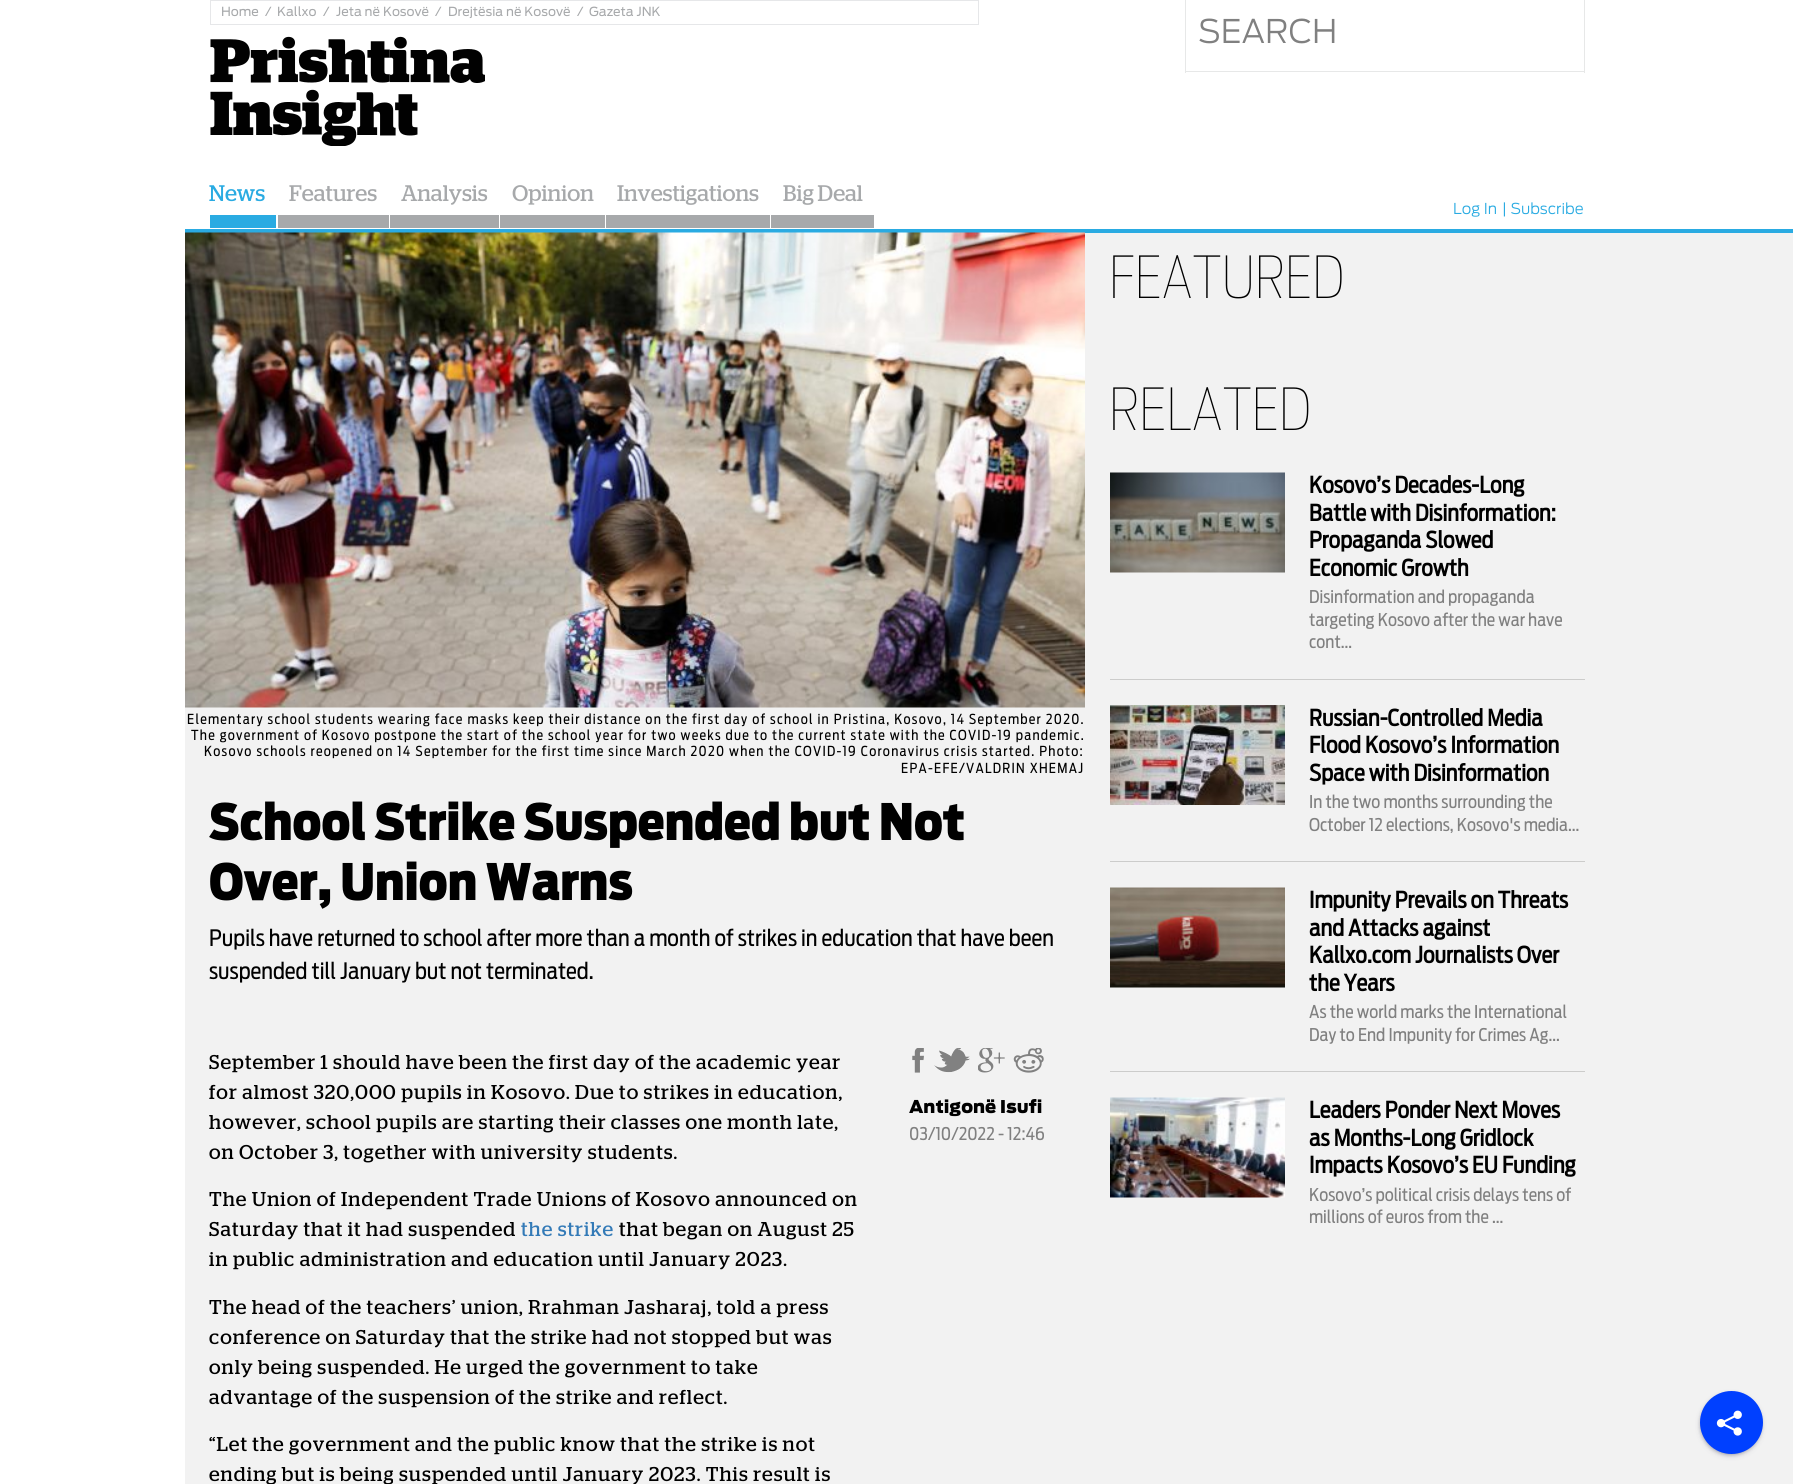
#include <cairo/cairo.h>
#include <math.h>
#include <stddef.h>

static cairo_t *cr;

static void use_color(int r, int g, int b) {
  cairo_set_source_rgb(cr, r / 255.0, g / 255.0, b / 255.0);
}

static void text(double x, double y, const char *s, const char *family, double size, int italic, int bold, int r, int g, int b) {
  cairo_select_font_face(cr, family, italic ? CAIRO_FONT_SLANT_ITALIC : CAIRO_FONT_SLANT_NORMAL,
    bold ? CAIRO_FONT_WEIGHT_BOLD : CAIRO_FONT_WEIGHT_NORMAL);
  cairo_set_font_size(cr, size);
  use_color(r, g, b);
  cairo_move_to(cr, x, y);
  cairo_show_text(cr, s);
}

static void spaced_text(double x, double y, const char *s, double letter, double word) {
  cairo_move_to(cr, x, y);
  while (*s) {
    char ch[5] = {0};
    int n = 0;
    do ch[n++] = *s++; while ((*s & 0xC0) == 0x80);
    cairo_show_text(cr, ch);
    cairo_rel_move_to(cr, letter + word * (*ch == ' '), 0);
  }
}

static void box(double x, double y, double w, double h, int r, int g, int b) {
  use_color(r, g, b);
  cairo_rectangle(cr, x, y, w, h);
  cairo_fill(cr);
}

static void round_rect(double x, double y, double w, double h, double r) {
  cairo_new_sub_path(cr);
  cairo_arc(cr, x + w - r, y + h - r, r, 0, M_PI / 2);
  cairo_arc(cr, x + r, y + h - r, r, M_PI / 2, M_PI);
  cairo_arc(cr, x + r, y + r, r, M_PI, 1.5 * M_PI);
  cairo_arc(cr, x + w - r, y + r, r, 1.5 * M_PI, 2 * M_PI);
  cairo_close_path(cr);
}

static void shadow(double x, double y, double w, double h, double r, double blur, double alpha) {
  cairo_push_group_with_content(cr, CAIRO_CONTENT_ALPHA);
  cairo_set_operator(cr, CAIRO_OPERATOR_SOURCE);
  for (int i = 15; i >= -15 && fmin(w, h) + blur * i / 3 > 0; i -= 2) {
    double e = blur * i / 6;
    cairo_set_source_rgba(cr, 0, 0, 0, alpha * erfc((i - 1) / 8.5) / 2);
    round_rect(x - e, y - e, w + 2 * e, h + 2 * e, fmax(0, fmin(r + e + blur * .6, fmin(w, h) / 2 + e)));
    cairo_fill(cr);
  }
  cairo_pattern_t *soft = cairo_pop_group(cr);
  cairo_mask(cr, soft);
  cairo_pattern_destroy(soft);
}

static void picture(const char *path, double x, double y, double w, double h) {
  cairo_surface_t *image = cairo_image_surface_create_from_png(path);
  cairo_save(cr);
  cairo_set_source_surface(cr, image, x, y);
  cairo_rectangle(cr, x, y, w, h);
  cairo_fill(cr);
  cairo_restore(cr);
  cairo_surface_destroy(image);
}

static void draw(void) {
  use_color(255, 255, 255);
  cairo_paint(cr);
  cairo_rectangle(cr, 210.5, 0.5, 768, 24);
  use_color(230, 231, 233);
  cairo_set_line_width(cr, 1);
  cairo_stroke(cr);
  box(1584, 0, 1, 73, 231, 232, 232);
  box(1185, 71, 400, 1, 231, 232, 232);
  box(1185, 0, 1, 73, 231, 232, 232);
  picture("img_01.png", 210, 36, 275, 110);
  box(185, 229, 1608, 4, 42, 171, 226);
  box(210, 215, 66, 13, 42, 171, 226);
  box(278, 215, 111, 13, 167, 169, 171);
  box(390, 215, 109, 13, 167, 169, 171);
  box(500, 215, 105, 13, 167, 169, 171);
  box(606, 215, 164, 13, 167, 169, 171);
  box(771, 215, 103, 13, 167, 169, 171);
  box(185, 233, 1608, 1251, 242, 242, 242);
  picture("img_02.png", 185, 232, 900, 476);
  picture("img_03.png", 912, 1048, 12, 25);
  picture("img_04.png", 934, 1048, 36, 25);
  picture("img_05.png", 978, 1048, 27, 25);
  picture("img_06.png", 1013, 1048, 31, 25);
  box(1110, 679, 475, 1, 204, 204, 203);
  picture("img_07.png", 1110, 472, 175, 101);
  box(1110, 861, 475, 1, 204, 204, 203);
  picture("img_08.png", 1110, 705, 175, 100);
  box(1110, 1071, 475, 1, 204, 204, 203);
  picture("img_09.png", 1110, 887, 175, 101);
  picture("img_10.png", 1110, 1097, 175, 101);
  use_color(0, 0, 0);
  shadow(1701, 1394, 60, 60, 30, 2, 0.3);
  use_color(50, 50, 93);
  shadow(1701, 1395, 60, 60, 30, 3, 0.25);
  use_color(0, 64, 255);
  cairo_arc(cr, 1731.5, 1422.5, 31.5, 0, 2 * M_PI);
  cairo_fill(cr);
  picture("img_11.png", 1716, 1410, 26, 26);
  text(221, 16, "Home", "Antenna", 12.5, 0, 0, 167, 169, 171);
  text(265, 16, "/", "Antenna", 12.5, 0, 0, 167, 169, 171);
  text(277, 16, "Kallxo", "Antenna", 12.5, 0, 0, 167, 169, 171);
  text(323, 16, "/", "Antenna", 12.5, 0, 0, 167, 169, 171);
  text(336, 16, "Jeta në Kosovë", "Antenna", 12.5, 0, 0, 167, 169, 171);
  text(435, 16, "/", "Antenna", 12.5, 0, 0, 167, 169, 171);
  text(448, 16, "Drejtësia në Kosovë", "Antenna", 12.5, 0, 0, 167, 169, 171);
  text(577, 16, "/", "Antenna", 12.5, 0, 0, 167, 169, 171);
  text(589, 16, "Gazeta JNK", "Antenna", 12.5, 0, 0, 167, 169, 171);
  text(1198, 43, "SEARCH", "Antenna Light", 32.5, 0, 0, 128, 128, 128);
  text(209, 201, "News", "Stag", 22.5, 0, 0, 42, 171, 226);
  text(289, 201, "Features", "Stag", 22.5, 0, 0, 167, 169, 171);
  text(401, 201, "Analysis", "Stag", 22.5, 0, 0, 167, 169, 171);
  text(512, 201, "Opinion", "Stag", 22.5, 0, 0, 167, 169, 171);
  text(617, 201, "Investigations", "Stag", 22.5, 0, 0, 167, 169, 171);
  text(783, 201, "Big Deal", "Stag", 22.5, 0, 0, 167, 169, 171);
  text(1453, 214, "Log In", "Antenna Light", 15, 0, 0, 42, 171, 226);
  text(1502, 214, "| Subscribe", "Antenna Light", 15, 0, 0, 42, 171, 226);
  cairo_select_font_face(cr, "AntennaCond", CAIRO_FONT_SLANT_NORMAL, CAIRO_FONT_WEIGHT_NORMAL);
  cairo_set_font_size(cr, 13.75);
  use_color(0, 0, 0);
  spaced_text(187, 724, "Elementary school students wearing face masks keep their distance on the first day of school in Pristina, Kosovo, 14 September 2020.", 1.25, 0);
  spaced_text(191, 740, "The government of Kosovo postpone the start of the school year for two weeks due to the current state with the COVID-19 pandemic.", 1.25, 0);
  spaced_text(204, 756, "Kosovo schools reopened on 14 September for the first time since March 2020 when the COVID-19 Coronavirus crisis started. Photo:", 1.25, 0);
  spaced_text(901, 773, "EPA-EFE/VALDRIN XHEMAJ", 1.25, 0);
  text(209, 840, "School Strike Suspended but Not", "AntennaCond Black", 50, 0, 0, 0, 0, 0);
  text(209, 900, "Over, Union Warns", "AntennaCond Black", 50, 0, 0, 0, 0, 0);
  text(209, 946, "Pupils have returned to school after more than a month of strikes in education that have been", "AntennaCond", 22.5, 0, 0, 0, 0, 0);
  text(209, 979, "suspended till January but not terminated.", "AntennaCond", 22.5, 0, 0, 0, 0, 0);
  cairo_select_font_face(cr, "Stag", CAIRO_FONT_SLANT_NORMAL, CAIRO_FONT_WEIGHT_NORMAL);
  cairo_set_font_size(cr, 20);
  spaced_text(209, 1069, "September 1 should have been the first day of the academic year", 1.05, 0);
  spaced_text(209, 1099, "for almost 320,000 pupils in Kosovo. Due to strikes in education,", 1.05, 0);
  spaced_text(209, 1129, "however, school pupils are starting their classes one month late,", 1.05, 0);
  spaced_text(209, 1159, "on October 3, together with university students.", 1.05, 0);
  spaced_text(209, 1206, "The Union of Independent Trade Unions of Kosovo announced on", 1.05, 0);
  spaced_text(209, 1236, "Saturday that it had suspended", 1.05, 0);
  use_color(51, 122, 183);
  spaced_text(521, 1236, "the strike", 1.05, 0);
  use_color(0, 0, 0);
  spaced_text(619, 1236, "that began on August 25", 1.05, 0);
  spaced_text(209, 1266, "in public administration and education until January 2023.", 1.05, 0);
  spaced_text(209, 1314, "The head of the teachers’ union, Rrahman Jasharaj, told a press", 1.05, 0);
  spaced_text(209, 1344, "conference on Saturday that the strike had not stopped but was", 1.05, 0);
  spaced_text(209, 1374, "only being suspended. He urged the government to take", 1.05, 0);
  spaced_text(209, 1404, "advantage of the suspension of the strike and reflect.", 1.05, 0);
  spaced_text(209, 1451, "“Let the government and the public know that the strike is not", 1.05, 0);
  spaced_text(209, 1481, "ending but is being suspended until January 2023. This result is", 1.05, 0);
  text(909, 1113, "Antigonë Isufi", "Antenna Black", 17.5, 0, 0, 0, 0, 0);
  text(909, 1140, "03/10/2022 - 12:46", "AntennaCond", 17.5, 0, 0, 128, 128, 128);
  text(1109, 298, "FEATURED", "AntennaCond Thin", 57.5, 0, 0, 0, 0, 0);
  text(1109, 430, "RELATED", "AntennaCond Thin", 57.5, 0, 0, 0, 0, 0);
  text(1309, 493, "Kosovo’s Decades-Long", "AntennaCond", 22.5, 0, 1, 0, 0, 0);
  text(1309, 521, "Battle with Disinformation:", "AntennaCond", 22.5, 0, 1, 0, 0, 0);
  text(1309, 548, "Propaganda Slowed", "AntennaCond", 22.5, 0, 1, 0, 0, 0);
  text(1309, 576, "Economic Growth", "AntennaCond", 22.5, 0, 1, 0, 0, 0);
  text(1309, 603, "Disinformation and propaganda", "AntennaCond", 17.5, 0, 0, 128, 128, 128);
  text(1309, 626, "targeting Kosovo after the war have", "AntennaCond", 17.5, 0, 0, 128, 128, 128);
  text(1309, 648, "cont...", "AntennaCond", 17.5, 0, 0, 128, 128, 128);
  text(1309, 726, "Russian-Controlled Media", "AntennaCond", 22.5, 0, 1, 0, 0, 0);
  text(1309, 753, "Flood Kosovo’s Information", "AntennaCond", 22.5, 0, 1, 0, 0, 0);
  text(1309, 781, "Space with Disinformation", "AntennaCond", 22.5, 0, 1, 0, 0, 0);
  text(1309, 808, "In the two months surrounding the", "AntennaCond", 17.5, 0, 0, 128, 128, 128);
  text(1309, 831, "October 12 elections, Kosovo's media...", "AntennaCond", 17.5, 0, 0, 128, 128, 128);
  text(1309, 908, "Impunity Prevails on Threats", "AntennaCond", 22.5, 0, 1, 0, 0, 0);
  text(1309, 936, "and Attacks against", "AntennaCond", 22.5, 0, 1, 0, 0, 0);
  text(1309, 963, "Kallxo.com Journalists Over", "AntennaCond", 22.5, 0, 1, 0, 0, 0);
  text(1309, 991, "the Years", "AntennaCond", 22.5, 0, 1, 0, 0, 0);
  text(1309, 1018, "As the world marks the International", "AntennaCond", 17.5, 0, 0, 128, 128, 128);
  text(1309, 1041, "Day to End Impunity for Crimes Ag...", "AntennaCond", 17.5, 0, 0, 128, 128, 128);
  text(1309, 1118, "Leaders Ponder Next Moves", "AntennaCond", 22.5, 0, 1, 0, 0, 0);
  text(1309, 1146, "as Months-Long Gridlock", "AntennaCond", 22.5, 0, 1, 0, 0, 0);
  text(1309, 1173, "Impacts Kosovo’s EU Funding", "AntennaCond", 22.5, 0, 1, 0, 0, 0);
  text(1309, 1201, "Kosovo’s political crisis delays tens of", "AntennaCond", 17.5, 0, 0, 128, 128, 128);
  text(1309, 1223, "millions of euros from the ...", "AntennaCond", 17.5, 0, 0, 128, 128, 128);
}

int main(void) {
  cairo_surface_t *surface = cairo_image_surface_create(CAIRO_FORMAT_RGB24, 1793, 1484);
  cr = cairo_create(surface);
  cairo_font_options_t *options = cairo_font_options_create();
  cairo_font_options_set_hint_metrics(options, CAIRO_HINT_METRICS_OFF);
  cairo_font_options_set_hint_style(options, CAIRO_HINT_STYLE_NONE);
  cairo_set_font_options(cr, options);
  cairo_set_miter_limit(cr, 4);
  draw();
  cairo_surface_write_to_png(surface, "out.png");
  cairo_font_options_destroy(options);
  cairo_destroy(cr);
  cairo_surface_destroy(surface);
  return 0;
}
